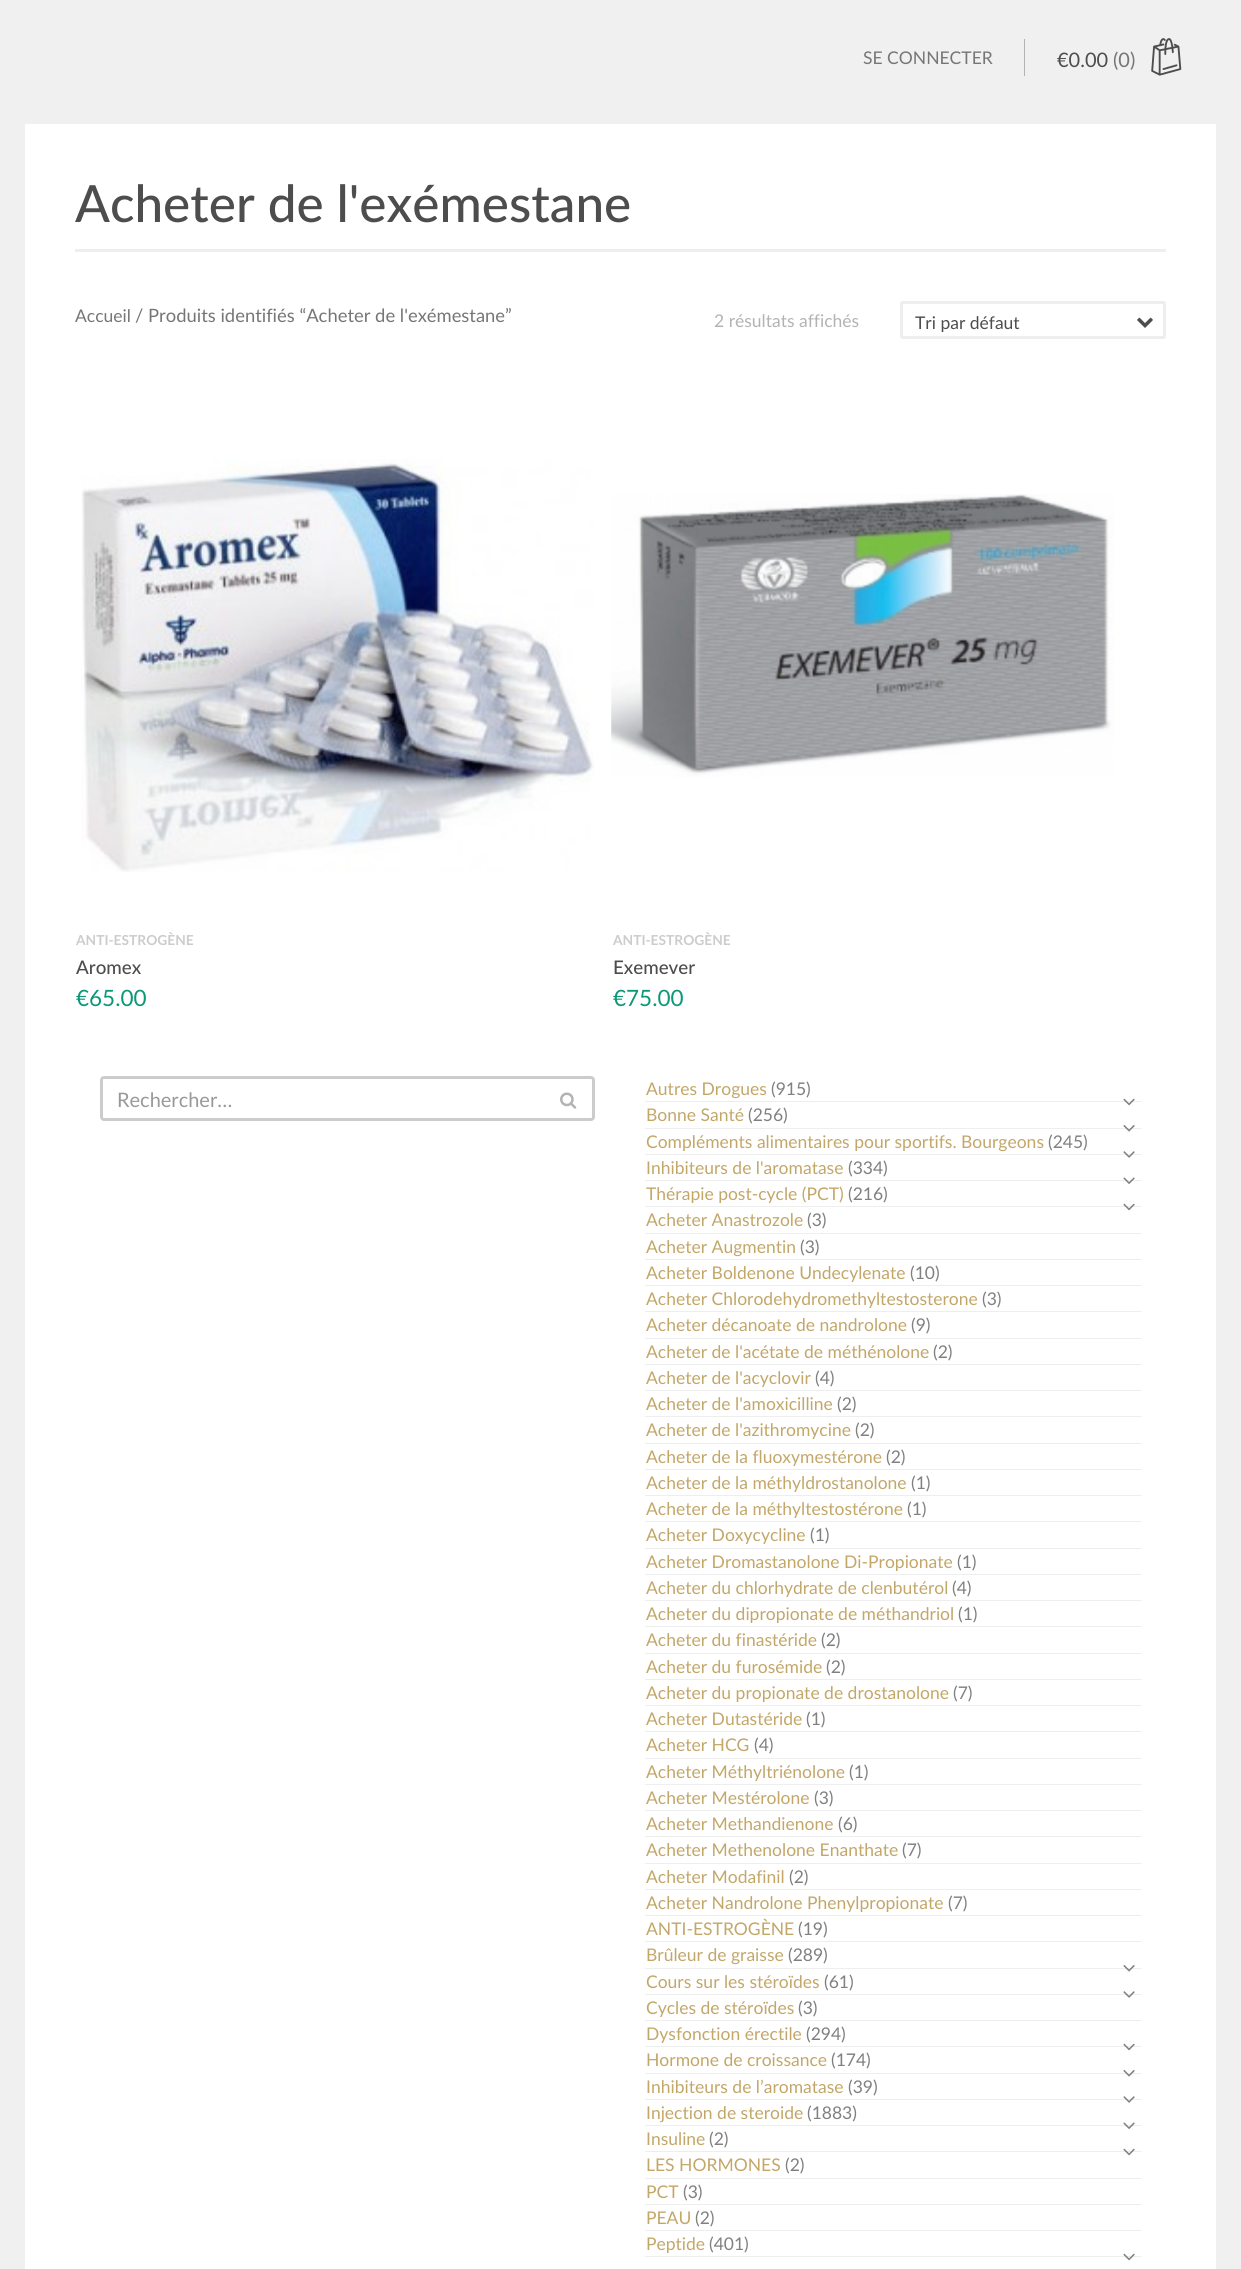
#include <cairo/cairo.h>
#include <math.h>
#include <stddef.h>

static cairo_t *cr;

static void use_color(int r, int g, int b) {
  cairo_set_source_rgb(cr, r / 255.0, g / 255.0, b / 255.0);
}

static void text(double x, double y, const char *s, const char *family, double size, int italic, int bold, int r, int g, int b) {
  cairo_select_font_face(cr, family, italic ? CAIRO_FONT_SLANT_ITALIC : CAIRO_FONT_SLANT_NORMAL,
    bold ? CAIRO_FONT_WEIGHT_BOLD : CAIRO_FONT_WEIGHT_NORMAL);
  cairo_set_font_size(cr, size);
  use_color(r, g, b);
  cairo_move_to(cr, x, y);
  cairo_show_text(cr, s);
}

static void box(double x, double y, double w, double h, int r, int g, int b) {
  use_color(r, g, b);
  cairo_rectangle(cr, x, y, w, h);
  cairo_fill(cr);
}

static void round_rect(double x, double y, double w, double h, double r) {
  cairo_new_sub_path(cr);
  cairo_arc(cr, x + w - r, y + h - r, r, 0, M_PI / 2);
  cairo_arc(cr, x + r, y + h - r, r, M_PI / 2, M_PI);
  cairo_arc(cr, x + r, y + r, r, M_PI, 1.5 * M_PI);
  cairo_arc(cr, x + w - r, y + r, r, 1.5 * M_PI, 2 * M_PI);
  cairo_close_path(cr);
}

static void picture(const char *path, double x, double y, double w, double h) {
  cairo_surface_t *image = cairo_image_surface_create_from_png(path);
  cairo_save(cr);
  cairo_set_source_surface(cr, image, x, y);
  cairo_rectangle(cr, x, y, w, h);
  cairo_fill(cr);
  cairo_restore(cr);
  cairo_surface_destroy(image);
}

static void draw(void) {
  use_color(240, 240, 240);
  cairo_paint(cr);
  box(1024, 39, 1, 37, 179, 179, 179);
  picture("img_01.png", 1151, 38, 31, 38);
  box(25, 124, 1191, 2145, 255, 255, 255);
  box(75, 249, 1091, 3, 238, 238, 238);
  round_rect(901.5, 302.5, 263, 35, 1);
  cairo_set_line_width(cr, 3);
  cairo_stroke(cr);
  picture("img_02.png", 1137, 317, 16, 11);
  picture("img_03.png", 81, 459, 513, 413);
  picture("img_04.png", 611, 494, 503, 283);
  round_rect(101.5, 1077.5, 492, 42, 2.5);
  use_color(204, 204, 204);
  cairo_stroke(cr);
  picture("img_05.png", 560, 1092, 17, 17);
  box(645, 1101, 496, 1, 238, 238, 238);
  picture("img_06.png", 1123, 1098, 12, 8);
  box(645, 1128, 496, 1, 238, 238, 238);
  picture("img_07.png", 1123, 1125, 12, 7);
  box(645, 1154, 496, 1, 238, 238, 238);
  picture("img_08.png", 1123, 1151, 12, 7);
  box(645, 1180, 496, 1, 238, 238, 238);
  picture("img_09.png", 1123, 1177, 12, 7);
  box(645, 1206, 496, 1, 238, 238, 238);
  picture("img_06.png", 1123, 1203, 12, 8);
  box(645, 1233, 496, 1, 238, 238, 238);
  box(645, 1259, 496, 1, 238, 238, 238);
  box(645, 1285, 496, 1, 238, 238, 238);
  box(645, 1311, 496, 1, 238, 238, 238);
  box(645, 1338, 496, 1, 238, 238, 238);
  box(645, 1364, 496, 1, 238, 238, 238);
  box(645, 1390, 496, 1, 238, 238, 238);
  box(645, 1416, 496, 1, 238, 238, 238);
  box(645, 1443, 496, 1, 238, 238, 238);
  box(645, 1469, 496, 1, 238, 238, 238);
  box(645, 1495, 496, 1, 238, 238, 238);
  box(645, 1521, 496, 1, 238, 238, 238);
  box(645, 1548, 496, 1, 238, 238, 238);
  box(645, 1574, 496, 1, 238, 238, 238);
  box(645, 1600, 496, 1, 238, 238, 238);
  box(645, 1626, 496, 1, 238, 238, 238);
  box(645, 1653, 496, 1, 238, 238, 238);
  box(645, 1679, 496, 1, 238, 238, 238);
  box(645, 1705, 496, 1, 238, 238, 238);
  box(645, 1731, 496, 1, 238, 238, 238);
  box(645, 1758, 496, 1, 238, 238, 238);
  box(645, 1784, 496, 1, 238, 238, 238);
  box(645, 1810, 496, 1, 238, 238, 238);
  box(645, 1836, 496, 1, 238, 238, 238);
  box(645, 1863, 496, 1, 238, 238, 238);
  box(645, 1889, 496, 1, 238, 238, 238);
  box(645, 1915, 496, 1, 238, 238, 238);
  box(645, 1941, 496, 1, 238, 238, 238);
  box(645, 1968, 496, 1, 238, 238, 238);
  picture("img_07.png", 1123, 1965, 12, 7);
  box(645, 1994, 496, 1, 238, 238, 238);
  picture("img_08.png", 1123, 1991, 12, 7);
  box(645, 2020, 496, 1, 238, 238, 238);
  box(645, 2046, 496, 1, 238, 238, 238);
  picture("img_06.png", 1123, 2043, 12, 8);
  box(645, 2073, 496, 1, 238, 238, 238);
  picture("img_07.png", 1123, 2070, 12, 7);
  box(645, 2099, 496, 1, 238, 238, 238);
  picture("img_08.png", 1123, 2096, 12, 7);
  box(645, 2125, 496, 1, 238, 238, 238);
  picture("img_09.png", 1123, 2122, 12, 7);
  box(645, 2151, 496, 1, 238, 238, 238);
  picture("img_06.png", 1123, 2148, 12, 8);
  box(645, 2178, 496, 1, 238, 238, 238);
  box(645, 2204, 496, 1, 238, 238, 238);
  box(645, 2230, 496, 1, 238, 238, 238);
  box(645, 2256, 496, 1, 238, 238, 238);
  picture("img_06.png", 1123, 2253, 12, 8);
  text(863, 64, "SE CONNECTER", "Lato", 17.5, 0, 0, 118, 118, 118);
  text(1057, 67, "€0.00", "Lato", 20, 0, 0, 77, 77, 77);
  text(1113, 67, "(0)", "Lato", 20, 0, 0, 118, 118, 118);
  text(75, 222, "Acheter de l'exémestane", "Lato Medium", 51.25, 0, 0, 77, 77, 77);
  text(75, 322, "Accueil", "Lato", 17.5, 0, 0, 118, 118, 118);
  text(135, 322, "/ Produits identifiés “Acheter de l'exémestane”", "Lato", 18.4, 0, 0, 118, 118, 118);
  text(714, 327, "2 résultats affichés", "Lato", 17.5, 0, 0, 179, 179, 179);
  text(915, 329, "Tri par défaut", "Lato", 17.5, 0, 0, 77, 77, 77);
  text(76, 945, "ANTI-ESTROGÈNE", "Lato", 13.75, 0, 1, 204, 204, 204);
  text(76, 974, "Aromex", "Lato Medium", 18.75, 0, 0, 77, 77, 77);
  text(76, 1006, "€65.00", "Lato", 22.5, 0, 0, 10, 152, 120);
  text(613, 945, "ANTI-ESTROGÈNE", "Lato", 13.75, 0, 1, 204, 204, 204);
  text(613, 974, "Exemever", "Lato Medium", 18.75, 0, 0, 77, 77, 77);
  text(613, 1006, "€75.00", "Lato", 22.5, 0, 0, 10, 152, 120);
  text(117, 1107, "Rechercher…", "Lato", 20, 0, 0, 153, 153, 153);
  text(646, 1095, "Autres Drogues", "Lato", 17.5, 0, 0, 195, 167, 105);
  text(771, 1095, "(915)", "Lato", 17.5, 0, 0, 128, 128, 128);
  text(646, 1121, "Bonne Santé", "Lato", 17.5, 0, 0, 195, 167, 105);
  text(748, 1121, "(256)", "Lato", 17.5, 0, 0, 128, 128, 128);
  text(646, 1148, "Compléments alimentaires pour sportifs. Bourgeons", "Lato", 17.5, 0, 0, 195, 167, 105);
  text(1048, 1148, "(245)", "Lato", 17.5, 0, 0, 128, 128, 128);
  text(646, 1174, "Inhibiteurs de l'aromatase", "Lato", 17.5, 0, 0, 195, 167, 105);
  text(848, 1174, "(334)", "Lato", 17.5, 0, 0, 128, 128, 128);
  text(646, 1200, "Thérapie post-cycle (PCT)", "Lato", 17.5, 0, 0, 195, 167, 105);
  text(848, 1200, "(216)", "Lato", 17.5, 0, 0, 128, 128, 128);
  text(646, 1226, "Acheter Anastrozole", "Lato", 17.5, 0, 0, 195, 167, 105);
  text(807, 1226, "(3)", "Lato", 17.5, 0, 0, 128, 128, 128);
  text(646, 1253, "Acheter Augmentin", "Lato", 17.5, 0, 0, 195, 167, 105);
  text(800, 1253, "(3)", "Lato", 17.5, 0, 0, 128, 128, 128);
  text(646, 1279, "Acheter Boldenone Undecylenate", "Lato", 17.5, 0, 0, 195, 167, 105);
  text(910, 1279, "(10)", "Lato", 17.5, 0, 0, 128, 128, 128);
  text(646, 1305, "Acheter Chlorodehydromethyltestosterone", "Lato", 17.5, 0, 0, 195, 167, 105);
  text(982, 1305, "(3)", "Lato", 17.5, 0, 0, 128, 128, 128);
  text(646, 1331, "Acheter décanoate de nandrolone", "Lato", 17.5, 0, 0, 195, 167, 105);
  text(911, 1331, "(9)", "Lato", 17.5, 0, 0, 128, 128, 128);
  text(646, 1358, "Acheter de l'acétate de méthénolone", "Lato", 17.5, 0, 0, 195, 167, 105);
  text(933, 1358, "(2)", "Lato", 17.5, 0, 0, 128, 128, 128);
  text(646, 1384, "Acheter de l'acyclovir", "Lato", 17.5, 0, 0, 195, 167, 105);
  text(815, 1384, "(4)", "Lato", 17.5, 0, 0, 128, 128, 128);
  text(646, 1410, "Acheter de l'amoxicilline", "Lato", 17.5, 0, 0, 195, 167, 105);
  text(837, 1410, "(2)", "Lato", 17.5, 0, 0, 128, 128, 128);
  text(646, 1436, "Acheter de l'azithromycine", "Lato", 17.5, 0, 0, 195, 167, 105);
  text(855, 1436, "(2)", "Lato", 17.5, 0, 0, 128, 128, 128);
  text(646, 1463, "Acheter de la fluoxymestérone", "Lato", 17.5, 0, 0, 195, 167, 105);
  text(886, 1463, "(2)", "Lato", 17.5, 0, 0, 128, 128, 128);
  text(646, 1489, "Acheter de la méthyldrostanolone", "Lato", 17.5, 0, 0, 195, 167, 105);
  text(911, 1489, "(1)", "Lato", 17.5, 0, 0, 128, 128, 128);
  text(646, 1515, "Acheter de la méthyltestostérone", "Lato", 17.5, 0, 0, 195, 167, 105);
  text(907, 1515, "(1)", "Lato", 17.5, 0, 0, 128, 128, 128);
  text(646, 1541, "Acheter Doxycycline", "Lato", 17.5, 0, 0, 195, 167, 105);
  text(810, 1541, "(1)", "Lato", 17.5, 0, 0, 128, 128, 128);
  text(646, 1568, "Acheter Dromastanolone Di-Propionate", "Lato", 17.5, 0, 0, 195, 167, 105);
  text(957, 1568, "(1)", "Lato", 17.5, 0, 0, 128, 128, 128);
  text(646, 1594, "Acheter du chlorhydrate de clenbutérol", "Lato", 17.5, 0, 0, 195, 167, 105);
  text(952, 1594, "(4)", "Lato", 17.5, 0, 0, 128, 128, 128);
  text(646, 1620, "Acheter du dipropionate de méthandriol", "Lato", 17.5, 0, 0, 195, 167, 105);
  text(958, 1620, "(1)", "Lato", 17.5, 0, 0, 128, 128, 128);
  text(646, 1646, "Acheter du finastéride", "Lato", 17.5, 0, 0, 195, 167, 105);
  text(821, 1646, "(2)", "Lato", 17.5, 0, 0, 128, 128, 128);
  text(646, 1673, "Acheter du furosémide", "Lato", 17.5, 0, 0, 195, 167, 105);
  text(826, 1673, "(2)", "Lato", 17.5, 0, 0, 128, 128, 128);
  text(646, 1699, "Acheter du propionate de drostanolone", "Lato", 17.5, 0, 0, 195, 167, 105);
  text(953, 1699, "(7)", "Lato", 17.5, 0, 0, 128, 128, 128);
  text(646, 1725, "Acheter Dutastéride", "Lato", 17.5, 0, 0, 195, 167, 105);
  text(806, 1725, "(1)", "Lato", 17.5, 0, 0, 128, 128, 128);
  text(646, 1751, "Acheter HCG", "Lato", 17.5, 0, 0, 195, 167, 105);
  text(754, 1751, "(4)", "Lato", 17.5, 0, 0, 128, 128, 128);
  text(646, 1778, "Acheter Méthyltriénolone", "Lato", 17.5, 0, 0, 195, 167, 105);
  text(849, 1778, "(1)", "Lato", 17.5, 0, 0, 128, 128, 128);
  text(646, 1804, "Acheter Mestérolone", "Lato", 17.5, 0, 0, 195, 167, 105);
  text(814, 1804, "(3)", "Lato", 17.5, 0, 0, 128, 128, 128);
  text(646, 1830, "Acheter Methandienone", "Lato", 17.5, 0, 0, 195, 167, 105);
  text(838, 1830, "(6)", "Lato", 17.5, 0, 0, 128, 128, 128);
  text(646, 1856, "Acheter Methenolone Enanthate", "Lato", 17.5, 0, 0, 195, 167, 105);
  text(902, 1856, "(7)", "Lato", 17.5, 0, 0, 128, 128, 128);
  text(646, 1883, "Acheter Modafinil", "Lato", 17.5, 0, 0, 195, 167, 105);
  text(789, 1883, "(2)", "Lato", 17.5, 0, 0, 128, 128, 128);
  text(646, 1909, "Acheter Nandrolone Phenylpropionate", "Lato", 17.5, 0, 0, 195, 167, 105);
  text(948, 1909, "(7)", "Lato", 17.5, 0, 0, 128, 128, 128);
  text(646, 1935, "ANTI-ESTROGÈNE", "Lato", 17.5, 0, 0, 195, 167, 105);
  text(798, 1935, "(19)", "Lato", 17.5, 0, 0, 128, 128, 128);
  text(646, 1961, "Brûleur de graisse", "Lato", 17.5, 0, 0, 195, 167, 105);
  text(788, 1961, "(289)", "Lato", 17.5, 0, 0, 128, 128, 128);
  text(646, 1988, "Cours sur les stéroïdes", "Lato", 17.5, 0, 0, 195, 167, 105);
  text(824, 1988, "(61)", "Lato", 17.5, 0, 0, 128, 128, 128);
  text(646, 2014, "Cycles de stéroïdes", "Lato", 17.5, 0, 0, 195, 167, 105);
  text(798, 2014, "(3)", "Lato", 17.5, 0, 0, 128, 128, 128);
  text(646, 2040, "Dysfonction érectile", "Lato", 17.5, 0, 0, 195, 167, 105);
  text(806, 2040, "(294)", "Lato", 17.5, 0, 0, 128, 128, 128);
  text(646, 2066, "Hormone de croissance", "Lato", 17.5, 0, 0, 195, 167, 105);
  text(831, 2066, "(174)", "Lato", 17.5, 0, 0, 128, 128, 128);
  text(646, 2093, "Inhibiteurs de l’aromatase", "Lato", 17.5, 0, 0, 195, 167, 105);
  text(848, 2093, "(39)", "Lato", 17.5, 0, 0, 128, 128, 128);
  text(646, 2119, "Injection de steroide", "Lato", 17.5, 0, 0, 195, 167, 105);
  text(807, 2119, "(1883)", "Lato", 17.5, 0, 0, 128, 128, 128);
  text(646, 2145, "Insuline", "Lato", 17.5, 0, 0, 195, 167, 105);
  text(709, 2145, "(2)", "Lato", 17.5, 0, 0, 128, 128, 128);
  text(646, 2171, "LES HORMONES", "Lato", 17.5, 0, 0, 195, 167, 105);
  text(785, 2171, "(2)", "Lato", 17.5, 0, 0, 128, 128, 128);
  text(646, 2198, "PCT", "Lato", 17.5, 0, 0, 195, 167, 105);
  text(683, 2198, "(3)", "Lato", 17.5, 0, 0, 128, 128, 128);
  text(646, 2224, "PEAU", "Lato", 17.5, 0, 0, 195, 167, 105);
  text(695, 2224, "(2)", "Lato", 17.5, 0, 0, 128, 128, 128);
  text(646, 2250, "Peptide", "Lato", 17.5, 0, 0, 195, 167, 105);
  text(709, 2250, "(401)", "Lato", 17.5, 0, 0, 128, 128, 128);
}

int main(void) {
  cairo_surface_t *surface = cairo_image_surface_create(CAIRO_FORMAT_RGB24, 1241, 2269);
  cr = cairo_create(surface);
  cairo_font_options_t *options = cairo_font_options_create();
  cairo_font_options_set_hint_metrics(options, CAIRO_HINT_METRICS_OFF);
  cairo_font_options_set_hint_style(options, CAIRO_HINT_STYLE_NONE);
  cairo_set_font_options(cr, options);
  cairo_set_miter_limit(cr, 4);
  draw();
  cairo_surface_write_to_png(surface, "out.png");
  cairo_font_options_destroy(options);
  cairo_destroy(cr);
  cairo_surface_destroy(surface);
  return 0;
}
